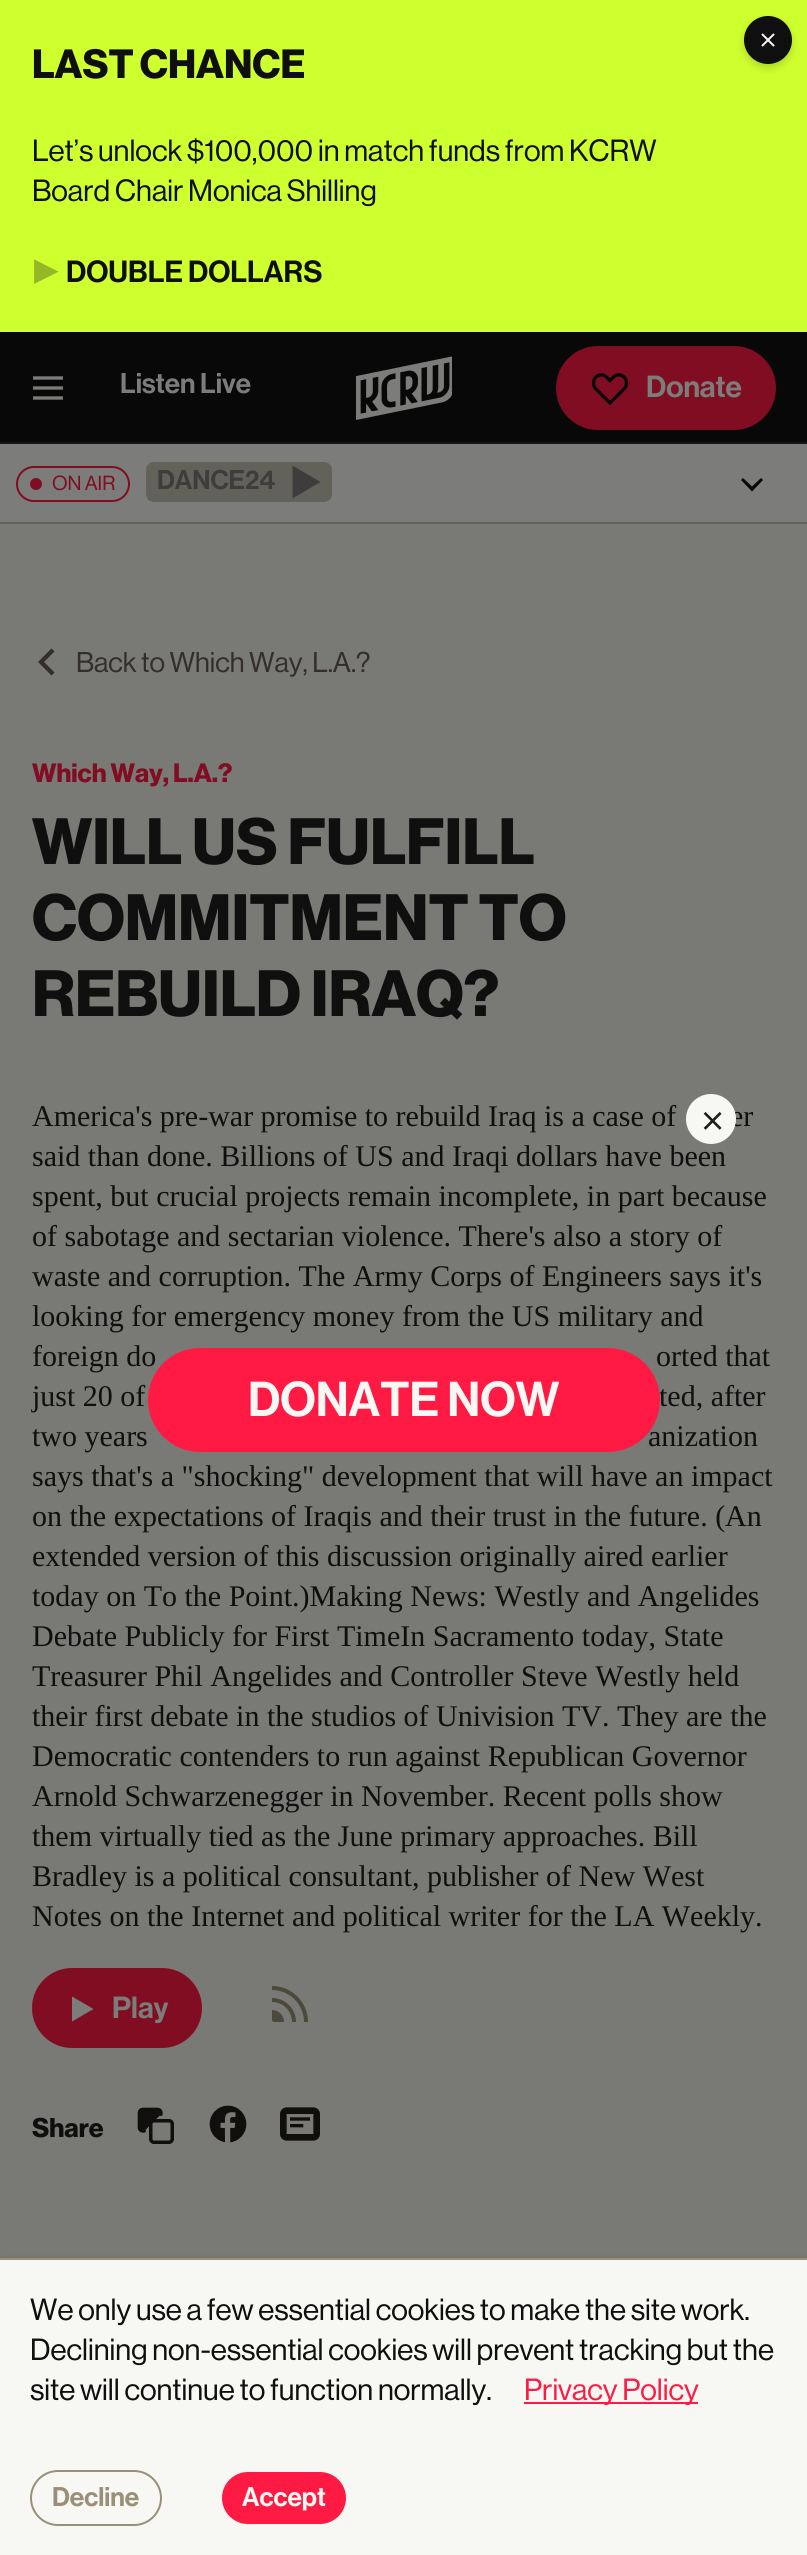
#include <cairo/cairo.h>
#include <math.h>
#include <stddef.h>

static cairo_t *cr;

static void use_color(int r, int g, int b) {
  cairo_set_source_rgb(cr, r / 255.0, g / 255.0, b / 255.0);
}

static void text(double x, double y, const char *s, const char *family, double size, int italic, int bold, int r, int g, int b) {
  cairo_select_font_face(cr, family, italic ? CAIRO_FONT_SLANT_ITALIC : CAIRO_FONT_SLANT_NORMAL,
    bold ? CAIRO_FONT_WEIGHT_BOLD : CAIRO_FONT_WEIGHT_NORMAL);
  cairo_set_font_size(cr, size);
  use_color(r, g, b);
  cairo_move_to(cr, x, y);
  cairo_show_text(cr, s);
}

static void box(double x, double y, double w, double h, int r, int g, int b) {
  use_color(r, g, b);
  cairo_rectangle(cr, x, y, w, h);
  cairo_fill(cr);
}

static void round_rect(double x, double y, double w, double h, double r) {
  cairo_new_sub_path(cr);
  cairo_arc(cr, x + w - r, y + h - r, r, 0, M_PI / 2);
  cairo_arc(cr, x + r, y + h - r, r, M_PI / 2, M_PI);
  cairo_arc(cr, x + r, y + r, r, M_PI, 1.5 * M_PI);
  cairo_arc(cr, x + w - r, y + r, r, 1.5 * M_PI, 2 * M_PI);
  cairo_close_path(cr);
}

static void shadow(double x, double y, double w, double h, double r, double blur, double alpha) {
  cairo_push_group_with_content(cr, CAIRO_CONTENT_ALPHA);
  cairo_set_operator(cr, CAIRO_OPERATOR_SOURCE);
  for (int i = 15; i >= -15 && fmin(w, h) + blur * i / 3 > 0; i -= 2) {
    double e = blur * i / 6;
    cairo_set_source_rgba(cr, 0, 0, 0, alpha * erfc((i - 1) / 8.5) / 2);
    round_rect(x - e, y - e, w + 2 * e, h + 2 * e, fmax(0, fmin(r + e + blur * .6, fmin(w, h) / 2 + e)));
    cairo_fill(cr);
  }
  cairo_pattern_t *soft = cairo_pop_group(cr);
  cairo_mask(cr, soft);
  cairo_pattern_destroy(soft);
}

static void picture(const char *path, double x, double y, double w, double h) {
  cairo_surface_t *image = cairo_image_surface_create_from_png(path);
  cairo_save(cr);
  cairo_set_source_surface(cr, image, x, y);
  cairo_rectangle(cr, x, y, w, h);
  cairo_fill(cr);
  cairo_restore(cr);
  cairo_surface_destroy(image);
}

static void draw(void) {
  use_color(121, 121, 117);
  cairo_paint(cr);
  box(0, 0, 807, 332, 206, 255, 46);
  use_color(10, 10, 10);
  shadow(744, 20, 48, 48, 24, 4, 0.16);
  use_color(15, 15, 15);
  cairo_arc(cr, 768, 40, 24, 0, 2 * M_PI);
  cairo_fill(cr);
  picture("img_01.png", 761, 33, 14, 14);
  box(0, 332, 807, 110, 8, 8, 8);
  box(0, 442, 807, 2, 22, 22, 21);
  picture("img_02.png", 33, 376, 30, 24);
  picture("img_03.png", 356, 356, 96, 64);
  use_color(128, 13, 34);
  round_rect(557, 347, 218, 82, 41);
  cairo_fill_preserve(cr);
  cairo_stroke(cr);
  picture("img_04.png", 591, 373, 38, 33);
  box(0, 444, 807, 78, 124, 124, 122);
  box(0, 522, 807, 2, 100, 98, 87);
  round_rect(17, 467, 112, 34, 17);
  use_color(128, 13, 34);
  cairo_stroke(cr);
  cairo_arc(cr, 36, 484, 6, 0, 2 * M_PI);
  cairo_fill(cr);
  use_color(120, 120, 120);
  round_rect(146, 462, 186, 40, 8);
  cairo_fill(cr);
  cairo_set_source_rgba(cr, 0.357, 0.349, 0.302, 0.7);
  round_rect(146, 462, 186, 40, 8);
  cairo_fill(cr);
  use_color(63, 61, 59);
  cairo_new_path(cr);
  cairo_move_to(cr, 292.5, 465.5);
  cairo_line_to(cr, 292.5, 498.5);
  cairo_line_to(cr, 320.5, 482);
  cairo_close_path(cr);
  cairo_fill(cr);
  use_color(8, 8, 8);
  cairo_set_fill_rule(cr, CAIRO_FILL_RULE_EVEN_ODD);
  cairo_new_path(cr);
  cairo_move_to(cr, 741, 480);
  cairo_line_to(cr, 743, 478);
  cairo_line_to(cr, 752, 486.5);
  cairo_line_to(cr, 761, 478);
  cairo_line_to(cr, 763, 480);
  cairo_line_to(cr, 752, 491.5);
  cairo_close_path(cr);
  cairo_fill(cr);
  use_color(51, 46, 42);
  cairo_new_path(cr);
  cairo_move_to(cr, 51.5, 648.5);
  cairo_line_to(cr, 54.5, 651.5);
  cairo_line_to(cr, 44, 662);
  cairo_line_to(cr, 54.5, 672.5);
  cairo_line_to(cr, 51.5, 675.5);
  cairo_line_to(cr, 38, 662);
  cairo_close_path(cr);
  cairo_fill(cr);
  use_color(128, 13, 34);
  round_rect(33, 1969, 168, 78, 39);
  cairo_fill_preserve(cr);
  cairo_stroke(cr);
  use_color(124, 124, 122);
  cairo_set_fill_rule(cr, CAIRO_FILL_RULE_WINDING);
  cairo_new_path(cr);
  cairo_move_to(cr, 72, 1996.5);
  cairo_line_to(cr, 72, 2021.5);
  cairo_line_to(cr, 93.5, 2009);
  cairo_close_path(cr);
  cairo_fill(cr);
  picture("img_05.png", 272, 1986, 36, 36);
  picture("img_06.png", 137, 2107, 37, 37);
  picture("img_07.png", 209, 2105, 38, 38);
  picture("img_08.png", 280, 2107, 40, 34);
  use_color(103, 5, 17);
  shadow(0, 2262, 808, 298, 0, 4, 0.25);
  box(0, 2260, 807, 295, 247, 247, 243);
  box(0, 2258, 807, 2, 154, 144, 121);
  box(524, 2402, 174, 2, 255, 26, 68);
  round_rect(31, 2471, 130, 54, 27);
  use_color(154, 144, 121);
  cairo_stroke(cr);
  use_color(255, 26, 68);
  round_rect(222, 2472, 124, 52, 26);
  cairo_fill(cr);
  text(32, 78, "LAST CHANCE", "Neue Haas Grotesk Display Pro", 40, 0, 1, 16, 15, 15);
  text(32, 161, "Let’s unlock $100,000 in match funds from KCRW", "Neue Haas Grotesk Display Pro Medium", 30, 0, 0, 16, 15, 15);
  text(32, 201, "Board Chair Monica Shilling", "Neue Haas Grotesk Display Pro Medium", 30, 0, 0, 16, 15, 15);
  text(34, 284, "▸", "DejaVu Sans", 45, 0, 1, 149, 183, 37);
  text(66, 282, "DOUBLE DOLLARS", "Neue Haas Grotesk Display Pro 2 Medium", 30, 0, 0, 16, 15, 15);
  text(120, 393, "Listen Live", "Neue Haas Grotesk Display Pro 2 Medium", 28, 0, 0, 124, 124, 122);
  text(646, 397, "Donate", "Neue Haas Grotesk Display Pro 2 Medium", 30, 0, 0, 124, 124, 122);
  text(52, 490, "ON AIR", "Neue Haas Grotesk Display Pro Medium", 20, 0, 0, 128, 13, 34);
  text(157, 489, "DANCE24", "Neue Haas Grotesk Display Pro 2 Medium", 26.5, 0, 0, 63, 61, 59);
  text(76, 672, "Back to Which Way, L.A.?", "Neue Haas Grotesk Display Pro Medium", 28, 0, 0, 51, 46, 42);
  text(32, 782, "Which Way, L.A.?", "Neue Haas Grotesk Display Pro", 26, 0, 1, 128, 13, 34);
  text(32, 864, "WILL US FULFILL", "Neue Haas Grotesk Display Pro", 64, 0, 1, 16, 15, 15);
  text(32, 940, "COMMITMENT TO", "Neue Haas Grotesk Display Pro", 64, 0, 1, 16, 15, 15);
  text(32, 1016, "REBUILD IRAQ?", "Neue Haas Grotesk Display Pro", 64, 0, 1, 16, 15, 15);
  text(32, 1126, "America's pre-war promise to rebuild Iraq is a case of", "Liberation Serif", 30, 0, 0, 16, 15, 15);
  text(730, 1126, "er", "Liberation Serif", 30, 0, 0, 16, 15, 15);
  text(32, 1166, "said than done. Billions of US and Iraqi dollars have been", "Liberation Serif", 30, 0, 0, 16, 15, 15);
  text(32, 1206, "spent, but crucial projects remain incomplete, in part because", "Liberation Serif", 30, 0, 0, 16, 15, 15);
  text(32, 1246, "of sabotage and sectarian violence. There's also a story of", "Liberation Serif", 30, 0, 0, 16, 15, 15);
  text(32, 1286, "waste and corruption. The Army Corps of Engineers says it's", "Liberation Serif", 30, 0, 0, 16, 15, 15);
  text(32, 1326, "looking for emergency money from the US military and", "Liberation Serif", 30, 0, 0, 16, 15, 15);
  text(32, 1366, "foreign do", "Liberation Serif", 30, 0, 0, 16, 15, 15);
  text(656, 1366, "orted that", "Liberation Serif", 30, 0, 0, 16, 15, 15);
  text(32, 1406, "just 20 of", "Liberation Serif", 30, 0, 0, 16, 15, 15);
  text(659, 1406, "ted, after", "Liberation Serif", 30, 0, 0, 16, 15, 15);
  text(32, 1446, "two years", "Liberation Serif", 30, 0, 0, 16, 15, 15);
  text(648, 1446, "anization", "Liberation Serif", 30, 0, 0, 16, 15, 15);
  text(32, 1486, "says that's a \"shocking\" development that will have an impact", "Liberation Serif", 30, 0, 0, 16, 15, 15);
  text(32, 1526, "on the expectations of Iraqis and their trust in the future. (An", "Liberation Serif", 30, 0, 0, 16, 15, 15);
  text(32, 1566, "extended version of this discussion originally aired earlier", "Liberation Serif", 30, 0, 0, 16, 15, 15);
  text(32, 1606, "today on To the Point.)Making News: Westly and Angelides", "Liberation Serif", 30, 0, 0, 16, 15, 15);
  text(32, 1646, "Debate Publicly for First TimeIn Sacramento today, State", "Liberation Serif", 30, 0, 0, 16, 15, 15);
  text(32, 1686, "Treasurer Phil Angelides and Controller Steve Westly held", "Liberation Serif", 30, 0, 0, 16, 15, 15);
  text(32, 1726, "their first debate in the studios of Univision TV. They are the", "Liberation Serif", 30, 0, 0, 16, 15, 15);
  text(32, 1766, "Democratic contenders to run against Republican Governor", "Liberation Serif", 30, 0, 0, 16, 15, 15);
  text(32, 1806, "Arnold Schwarzenegger in November. Recent polls show", "Liberation Serif", 30, 0, 0, 16, 15, 15);
  text(32, 1846, "them virtually tied as the June primary approaches. Bill", "Liberation Serif", 30, 0, 0, 16, 15, 15);
  text(32, 1886, "Bradley is a political consultant, publisher of New West", "Liberation Serif", 30, 0, 0, 16, 15, 15);
  text(32, 1926, "Notes on the Internet and political writer for the LA Weekly.", "Liberation Serif", 30, 0, 0, 16, 15, 15);
  text(112, 2018, "Play", "Neue Haas Grotesk Display Pro 2 Medium", 30, 0, 0, 124, 124, 122);
  text(32, 2137, "Share", "Neue Haas Grotesk Display Pro", 26.5, 0, 1, 16, 15, 15);
  use_color(247, 247, 243);
  cairo_new_path(cr);
  cairo_arc(cr, 711, 1119, 25, 0, 2 * M_PI);
  cairo_fill(cr);
  picture("img_09.png", 703, 1112, 19, 18);
  use_color(255, 26, 68);
  round_rect(150, 1350, 508, 100, 50);
  cairo_fill_preserve(cr);
  cairo_set_line_width(cr, 4);
  cairo_stroke(cr);
  text(248, 1416, "DONATE NOW", "Neue Haas Grotesk Display Pro 2 Medium", 48, 0, 0, 247, 247, 243);
  text(30, 2320, "We only use a few essential cookies to make the site work.", "Neue Haas Grotesk Display Pro Medium", 30, 0, 0, 16, 15, 15);
  text(30, 2360, "Declining non-essential cookies will prevent tracking but the", "Neue Haas Grotesk Display Pro Medium", 30, 0, 0, 16, 15, 15);
  text(30, 2400, "site will continue to function normally.", "Neue Haas Grotesk Display Pro Medium", 30, 0, 0, 16, 15, 15);
  text(524, 2400, "Privacy Policy", "Neue Haas Grotesk Display Pro Medium", 30, 0, 0, 255, 26, 68);
  text(52, 2506, "Decline", "Neue Haas Grotesk Display Pro 2 Medium", 26.5, 0, 0, 154, 144, 121);
  text(242, 2506, "Accept", "Neue Haas Grotesk Display Pro 2 Medium", 26.5, 0, 0, 247, 247, 243);
}

int main(void) {
  cairo_surface_t *surface = cairo_image_surface_create(CAIRO_FORMAT_RGB24, 807, 2555);
  cr = cairo_create(surface);
  cairo_font_options_t *options = cairo_font_options_create();
  cairo_font_options_set_hint_metrics(options, CAIRO_HINT_METRICS_OFF);
  cairo_font_options_set_hint_style(options, CAIRO_HINT_STYLE_NONE);
  cairo_set_font_options(cr, options);
  cairo_set_miter_limit(cr, 4);
  draw();
  cairo_surface_write_to_png(surface, "out.png");
  cairo_font_options_destroy(options);
  cairo_destroy(cr);
  cairo_surface_destroy(surface);
  return 0;
}
